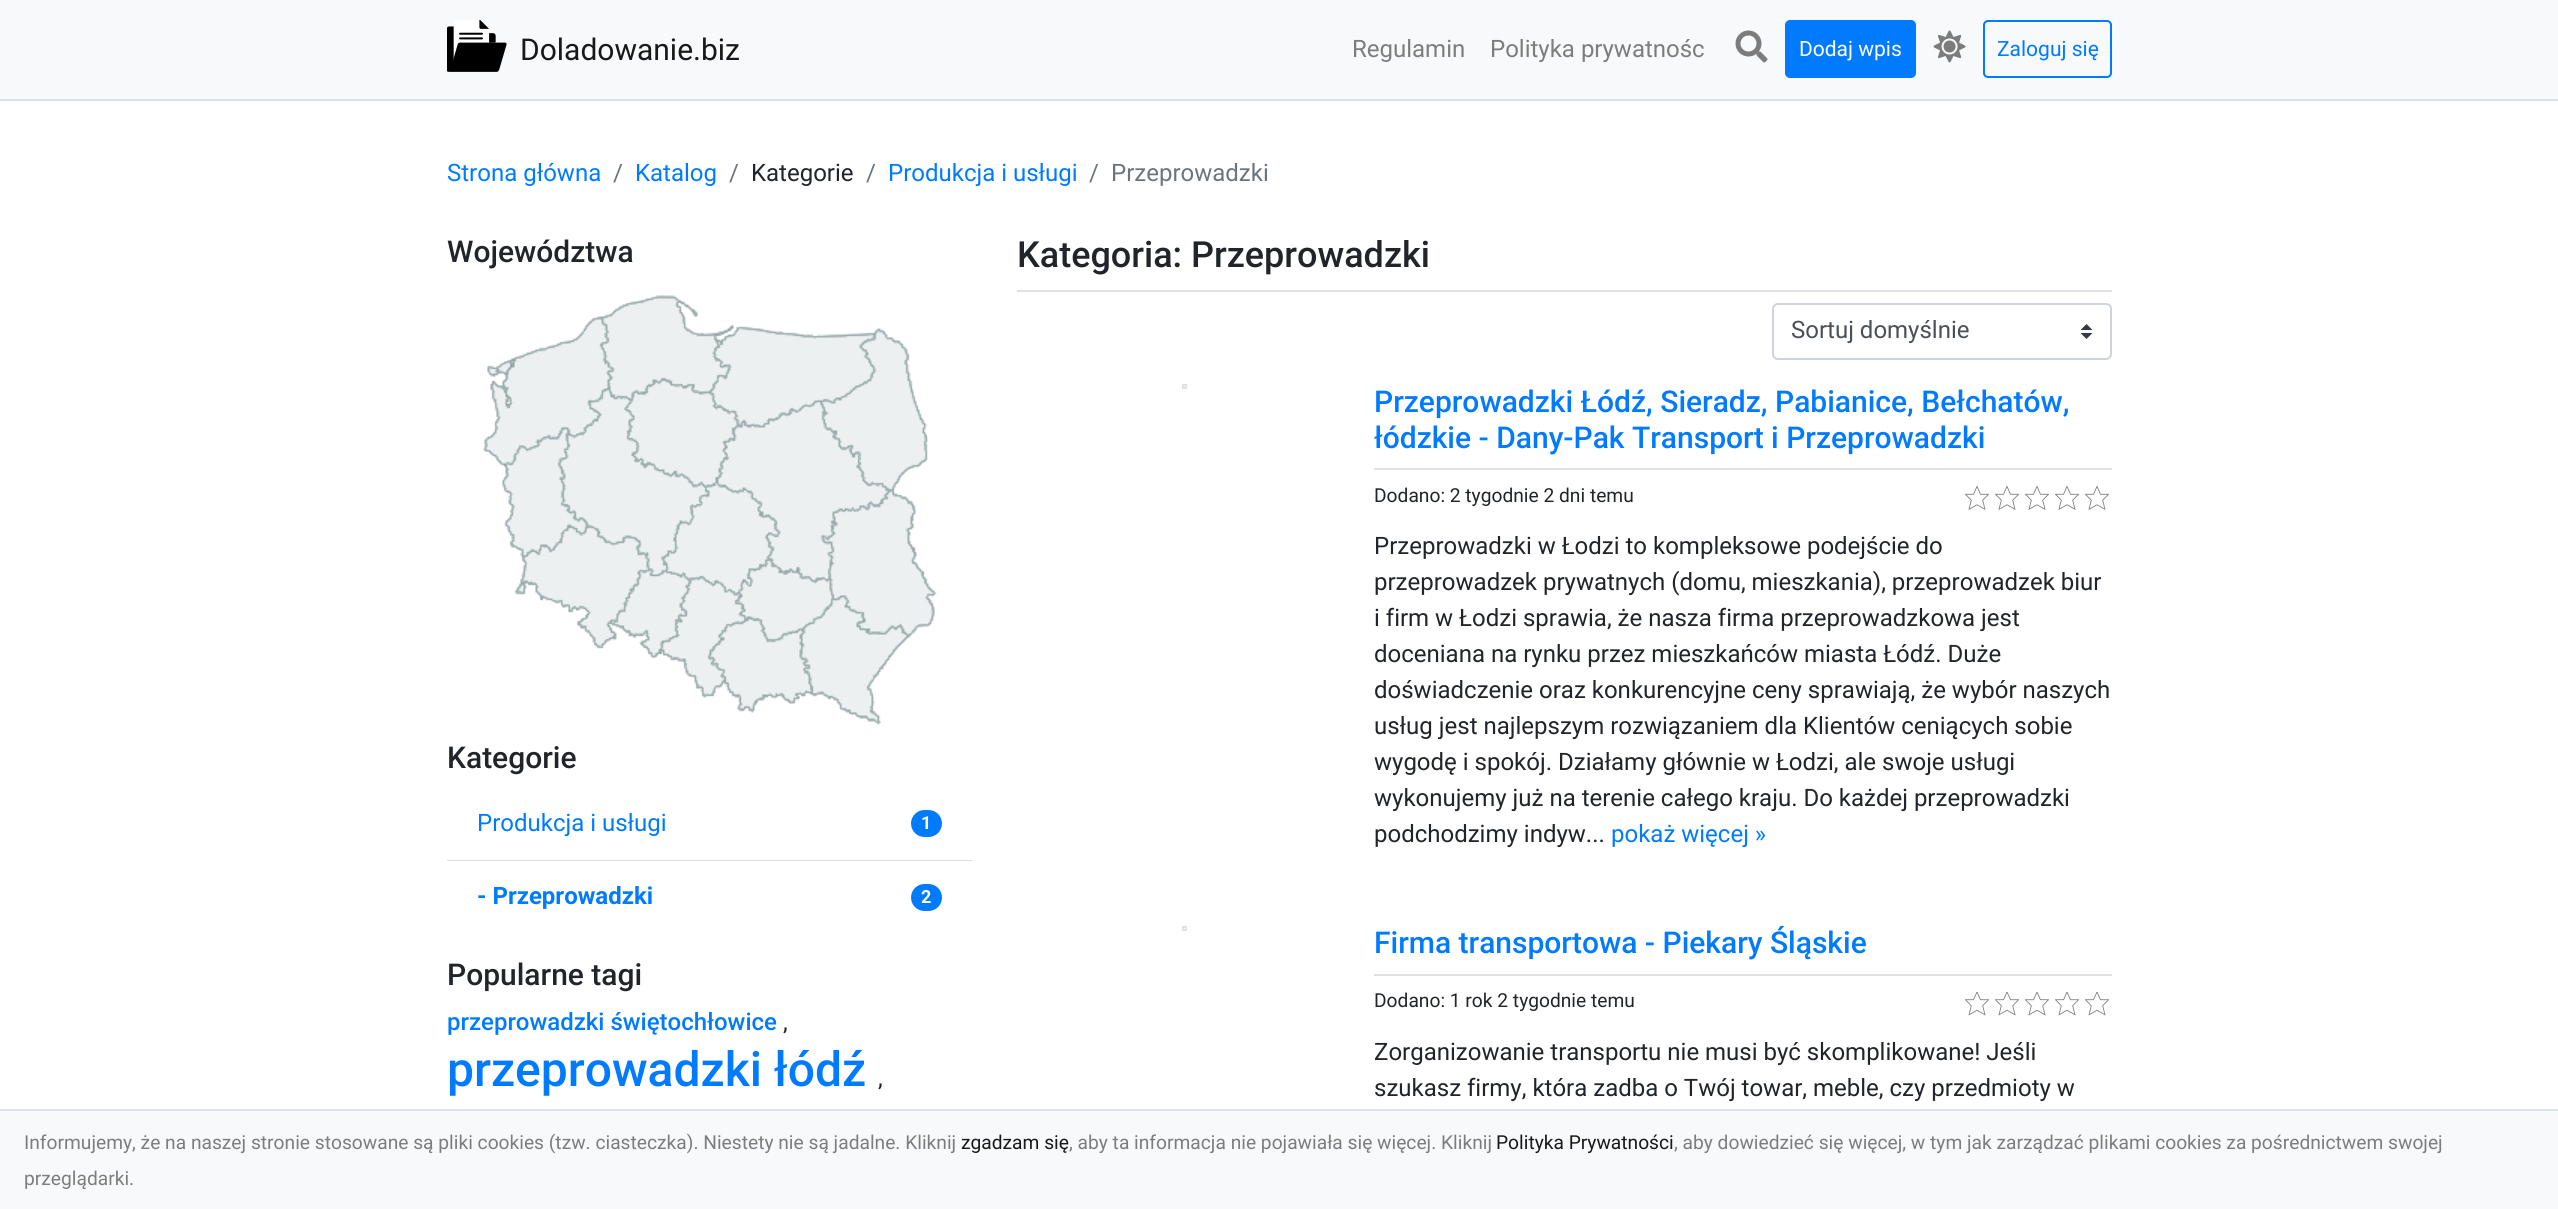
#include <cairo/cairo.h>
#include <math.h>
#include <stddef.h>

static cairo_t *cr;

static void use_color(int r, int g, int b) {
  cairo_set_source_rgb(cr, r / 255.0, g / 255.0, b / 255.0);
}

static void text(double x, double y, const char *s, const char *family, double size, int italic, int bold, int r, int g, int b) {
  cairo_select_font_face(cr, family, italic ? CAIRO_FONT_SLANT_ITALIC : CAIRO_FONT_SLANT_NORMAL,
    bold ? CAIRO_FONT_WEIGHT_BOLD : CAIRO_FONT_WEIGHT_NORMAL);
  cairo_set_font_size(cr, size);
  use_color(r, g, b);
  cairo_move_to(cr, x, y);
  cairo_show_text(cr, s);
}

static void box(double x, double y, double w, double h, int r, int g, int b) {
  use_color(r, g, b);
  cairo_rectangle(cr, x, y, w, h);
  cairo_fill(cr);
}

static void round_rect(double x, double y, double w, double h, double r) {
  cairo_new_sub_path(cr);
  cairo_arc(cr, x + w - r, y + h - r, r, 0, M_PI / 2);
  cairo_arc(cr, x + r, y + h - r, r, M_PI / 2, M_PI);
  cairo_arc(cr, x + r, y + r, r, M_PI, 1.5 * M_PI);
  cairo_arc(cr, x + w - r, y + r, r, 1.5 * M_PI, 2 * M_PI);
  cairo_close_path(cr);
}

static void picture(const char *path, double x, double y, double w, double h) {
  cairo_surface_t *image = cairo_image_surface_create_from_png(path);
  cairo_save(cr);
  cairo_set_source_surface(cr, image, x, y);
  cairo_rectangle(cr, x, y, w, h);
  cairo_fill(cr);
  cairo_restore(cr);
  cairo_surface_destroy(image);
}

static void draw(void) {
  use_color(255, 255, 255);
  cairo_paint(cr);
  box(0, 0, 2558, 99, 248, 249, 250);
  box(0, 99, 2558, 2, 222, 226, 230);
  picture("img_01.png", 447, 20, 60, 52);
  picture("img_02.png", 1735, 30, 33, 33);
  use_color(0, 123, 255);
  round_rect(1786, 21, 129, 56, 4);
  cairo_fill_preserve(cr);
  cairo_stroke(cr);
  picture("img_03.png", 1933, 30, 33, 33);
  round_rect(1984, 21, 127, 56, 4);
  cairo_stroke(cr);
  picture("img_04.png", 482, 295, 455, 430);
  box(447, 860, 525, 1, 223, 223, 223);
  use_color(0, 123, 255);
  round_rect(911, 810, 31, 27, 13.5);
  cairo_fill(cr);
  round_rect(911, 884, 31, 27, 13.5);
  cairo_fill(cr);
  box(1017, 290, 1095, 2, 222, 226, 230);
  picture("img_05.png", 2081, 324, 12, 15);
  round_rect(1773, 304, 338, 55, 5);
  use_color(206, 212, 218);
  cairo_stroke(cr);
  cairo_rectangle(cr, 1183, 385, 3, 3);
  use_color(222, 226, 230);
  cairo_stroke(cr);
  box(1374, 468, 738, 2, 222, 226, 230);
  picture("img_06.png", 1965, 486, 24, 24);
  picture("img_06.png", 1995, 486, 24, 24);
  picture("img_06.png", 2025, 486, 24, 24);
  picture("img_06.png", 2055, 486, 24, 24);
  picture("img_06.png", 2085, 486, 24, 24);
  cairo_rectangle(cr, 1183, 927, 3, 3);
  cairo_stroke(cr);
  box(1374, 974, 738, 2, 222, 226, 230);
  picture("img_07.png", 1965, 992, 24, 24);
  picture("img_07.png", 1995, 992, 24, 24);
  picture("img_07.png", 2025, 992, 24, 24);
  picture("img_07.png", 2055, 992, 24, 24);
  picture("img_07.png", 2085, 992, 24, 24);
  box(0, 1111, 2558, 98, 248, 249, 250);
  box(0, 1109, 2558, 2, 222, 226, 230);
  text(520, 60, "Doladowanie.biz", "Roboto", 30, 0, 0, 25, 25, 25);
  text(1352, 57, "Regulamin", "Roboto", 24, 0, 0, 124, 125, 125);
  text(1490, 57, "Polityka prywatnośc", "Roboto", 24, 0, 0, 124, 125, 125);
  text(1799, 56, "Dodaj wpis", "Roboto", 21, 0, 0, 255, 255, 255);
  text(1997, 56, "Zaloguj się", "Roboto", 21, 0, 0, 0, 123, 255);
  text(447, 181, "Strona główna", "Roboto", 24, 0, 0, 0, 123, 255);
  text(613, 181, "/", "Roboto", 24, 0, 0, 108, 117, 125);
  text(635, 181, "Katalog", "Roboto", 24, 0, 0, 0, 123, 255);
  text(729, 181, "/", "Roboto", 24, 0, 0, 108, 117, 125);
  text(751, 181, "Kategorie", "Roboto", 24, 0, 0, 33, 37, 41);
  text(866, 181, "/", "Roboto", 24, 0, 0, 108, 117, 125);
  text(888, 181, "Produkcja i usługi", "Roboto", 24, 0, 0, 0, 123, 255);
  text(1089, 181, "/", "Roboto", 24, 0, 0, 108, 117, 125);
  text(1111, 181, "Przeprowadzki", "Roboto", 24, 0, 0, 108, 117, 125);
  text(447, 262, "Województwa", "Roboto Medium", 30, 0, 0, 33, 37, 41);
  text(447, 768, "Kategorie", "Roboto Medium", 30, 0, 0, 33, 37, 41);
  text(477, 831, "Produkcja i usługi", "Roboto", 24, 0, 0, 0, 123, 255);
  text(921, 829, "1", "Roboto", 18, 0, 1, 255, 255, 255);
  text(477, 904, "- Przeprowadzki", "Roboto", 24, 0, 1, 0, 123, 255);
  text(921, 903, "2", "Roboto", 18, 0, 1, 255, 255, 255);
  text(447, 985, "Popularne tagi", "Roboto Medium", 30, 0, 0, 33, 37, 41);
  text(447, 1030, "przeprowadzki świętochłowice", "Roboto Medium", 24, 0, 0, 0, 123, 255);
  text(783, 1030, ",", "Roboto", 24, 0, 0, 33, 37, 41);
  text(447, 1086, "przeprowadzki łódź", "Roboto Medium", 48, 0, 0, 0, 123, 255);
  text(878, 1086, ",", "Roboto", 24, 0, 0, 33, 37, 41);
  text(1017, 267, "Kategoria: Przeprowadzki", "Roboto Medium", 36, 0, 0, 33, 37, 41);
  text(1791, 338, "Sortuj domyślnie", "Roboto", 24, 0, 0, 73, 80, 87);
  text(1374, 412, "Przeprowadzki Łódź, Sieradz, Pabianice, Bełchatów,", "Roboto Medium", 30, 0, 0, 0, 123, 255);
  text(1374, 448, "łódzkie - Dany-Pak Transport i Przeprowadzki", "Roboto Medium", 30, 0, 0, 0, 123, 255);
  text(1374, 502, "Dodano: 2 tygodnie 2 dni temu", "Roboto", 19.2, 0, 0, 33, 37, 41);
  text(1374, 554, "Przeprowadzki w Łodzi to kompleksowe podejście do", "Roboto", 24, 0, 0, 33, 37, 41);
  text(1374, 590, "przeprowadzek prywatnych (domu, mieszkania), przeprowadzek biur", "Roboto", 24, 0, 0, 33, 37, 41);
  text(1374, 626, "i firm w Łodzi sprawia, że nasza firma przeprowadzkowa jest", "Roboto", 24, 0, 0, 33, 37, 41);
  text(1374, 662, "doceniana na rynku przez mieszkańców miasta Łódź. Duże", "Roboto", 24, 0, 0, 33, 37, 41);
  text(1374, 698, "doświadczenie oraz konkurencyjne ceny sprawiają, że wybór naszych", "Roboto", 24, 0, 0, 33, 37, 41);
  text(1374, 734, "usług jest najlepszym rozwiązaniem dla Klientów ceniących sobie", "Roboto", 24, 0, 0, 33, 37, 41);
  text(1374, 770, "wygodę i spokój. Działamy głównie w Łodzi, ale swoje usługi", "Roboto", 24, 0, 0, 33, 37, 41);
  text(1374, 806, "wykonujemy już na terenie całego kraju. Do każdej przeprowadzki", "Roboto", 24, 0, 0, 33, 37, 41);
  text(1374, 842, "podchodzimy indyw...", "Roboto", 24, 0, 0, 33, 37, 41);
  text(1611, 842, "pokaż więcej »", "Roboto", 24, 0, 0, 0, 123, 255);
  text(1374, 953, "Firma transportowa - Piekary Śląskie", "Roboto Medium", 30, 0, 0, 0, 123, 255);
  text(1374, 1007, "Dodano: 1 rok 2 tygodnie temu", "Roboto", 19.2, 0, 0, 33, 37, 41);
  text(1374, 1060, "Zorganizowanie transportu nie musi być skomplikowane! Jeśli", "Roboto", 24, 0, 0, 33, 37, 41);
  text(1374, 1096, "szukasz firmy, która zadba o Twój towar, meble, czy przedmioty w", "Roboto", 24, 0, 0, 33, 37, 41);
  text(24, 1149, "Informujemy, że na naszej stronie stosowane są pliki cookies (tzw. ciasteczka). Niestety nie są jadalne. Kliknij", "Roboto", 19.2, 0, 0, 124, 125, 125);
  text(961, 1149, "zgadzam się", "Roboto", 19.2, 0, 0, 25, 25, 25);
  text(1069, 1149, ", aby ta informacja nie pojawiała się więcej. Kliknij", "Roboto", 19.2, 0, 0, 124, 125, 125);
  text(1496, 1149, "Polityka Prywatności", "Roboto", 19.2, 0, 0, 25, 25, 25);
  text(1674, 1149, ", aby dowiedzieć się więcej, w tym jak zarządzać plikami cookies za pośrednictwem swojej", "Roboto", 19.2, 0, 0, 124, 125, 125);
  text(24, 1185, "przeglądarki.", "Roboto", 19.2, 0, 0, 124, 125, 125);
}

int main(void) {
  cairo_surface_t *surface = cairo_image_surface_create(CAIRO_FORMAT_RGB24, 2558, 1209);
  cr = cairo_create(surface);
  cairo_font_options_t *options = cairo_font_options_create();
  cairo_font_options_set_hint_metrics(options, CAIRO_HINT_METRICS_OFF);
  cairo_font_options_set_hint_style(options, CAIRO_HINT_STYLE_NONE);
  cairo_set_font_options(cr, options);
  cairo_set_miter_limit(cr, 4);
  draw();
  cairo_surface_write_to_png(surface, "out.png");
  cairo_font_options_destroy(options);
  cairo_destroy(cr);
  cairo_surface_destroy(surface);
  return 0;
}
